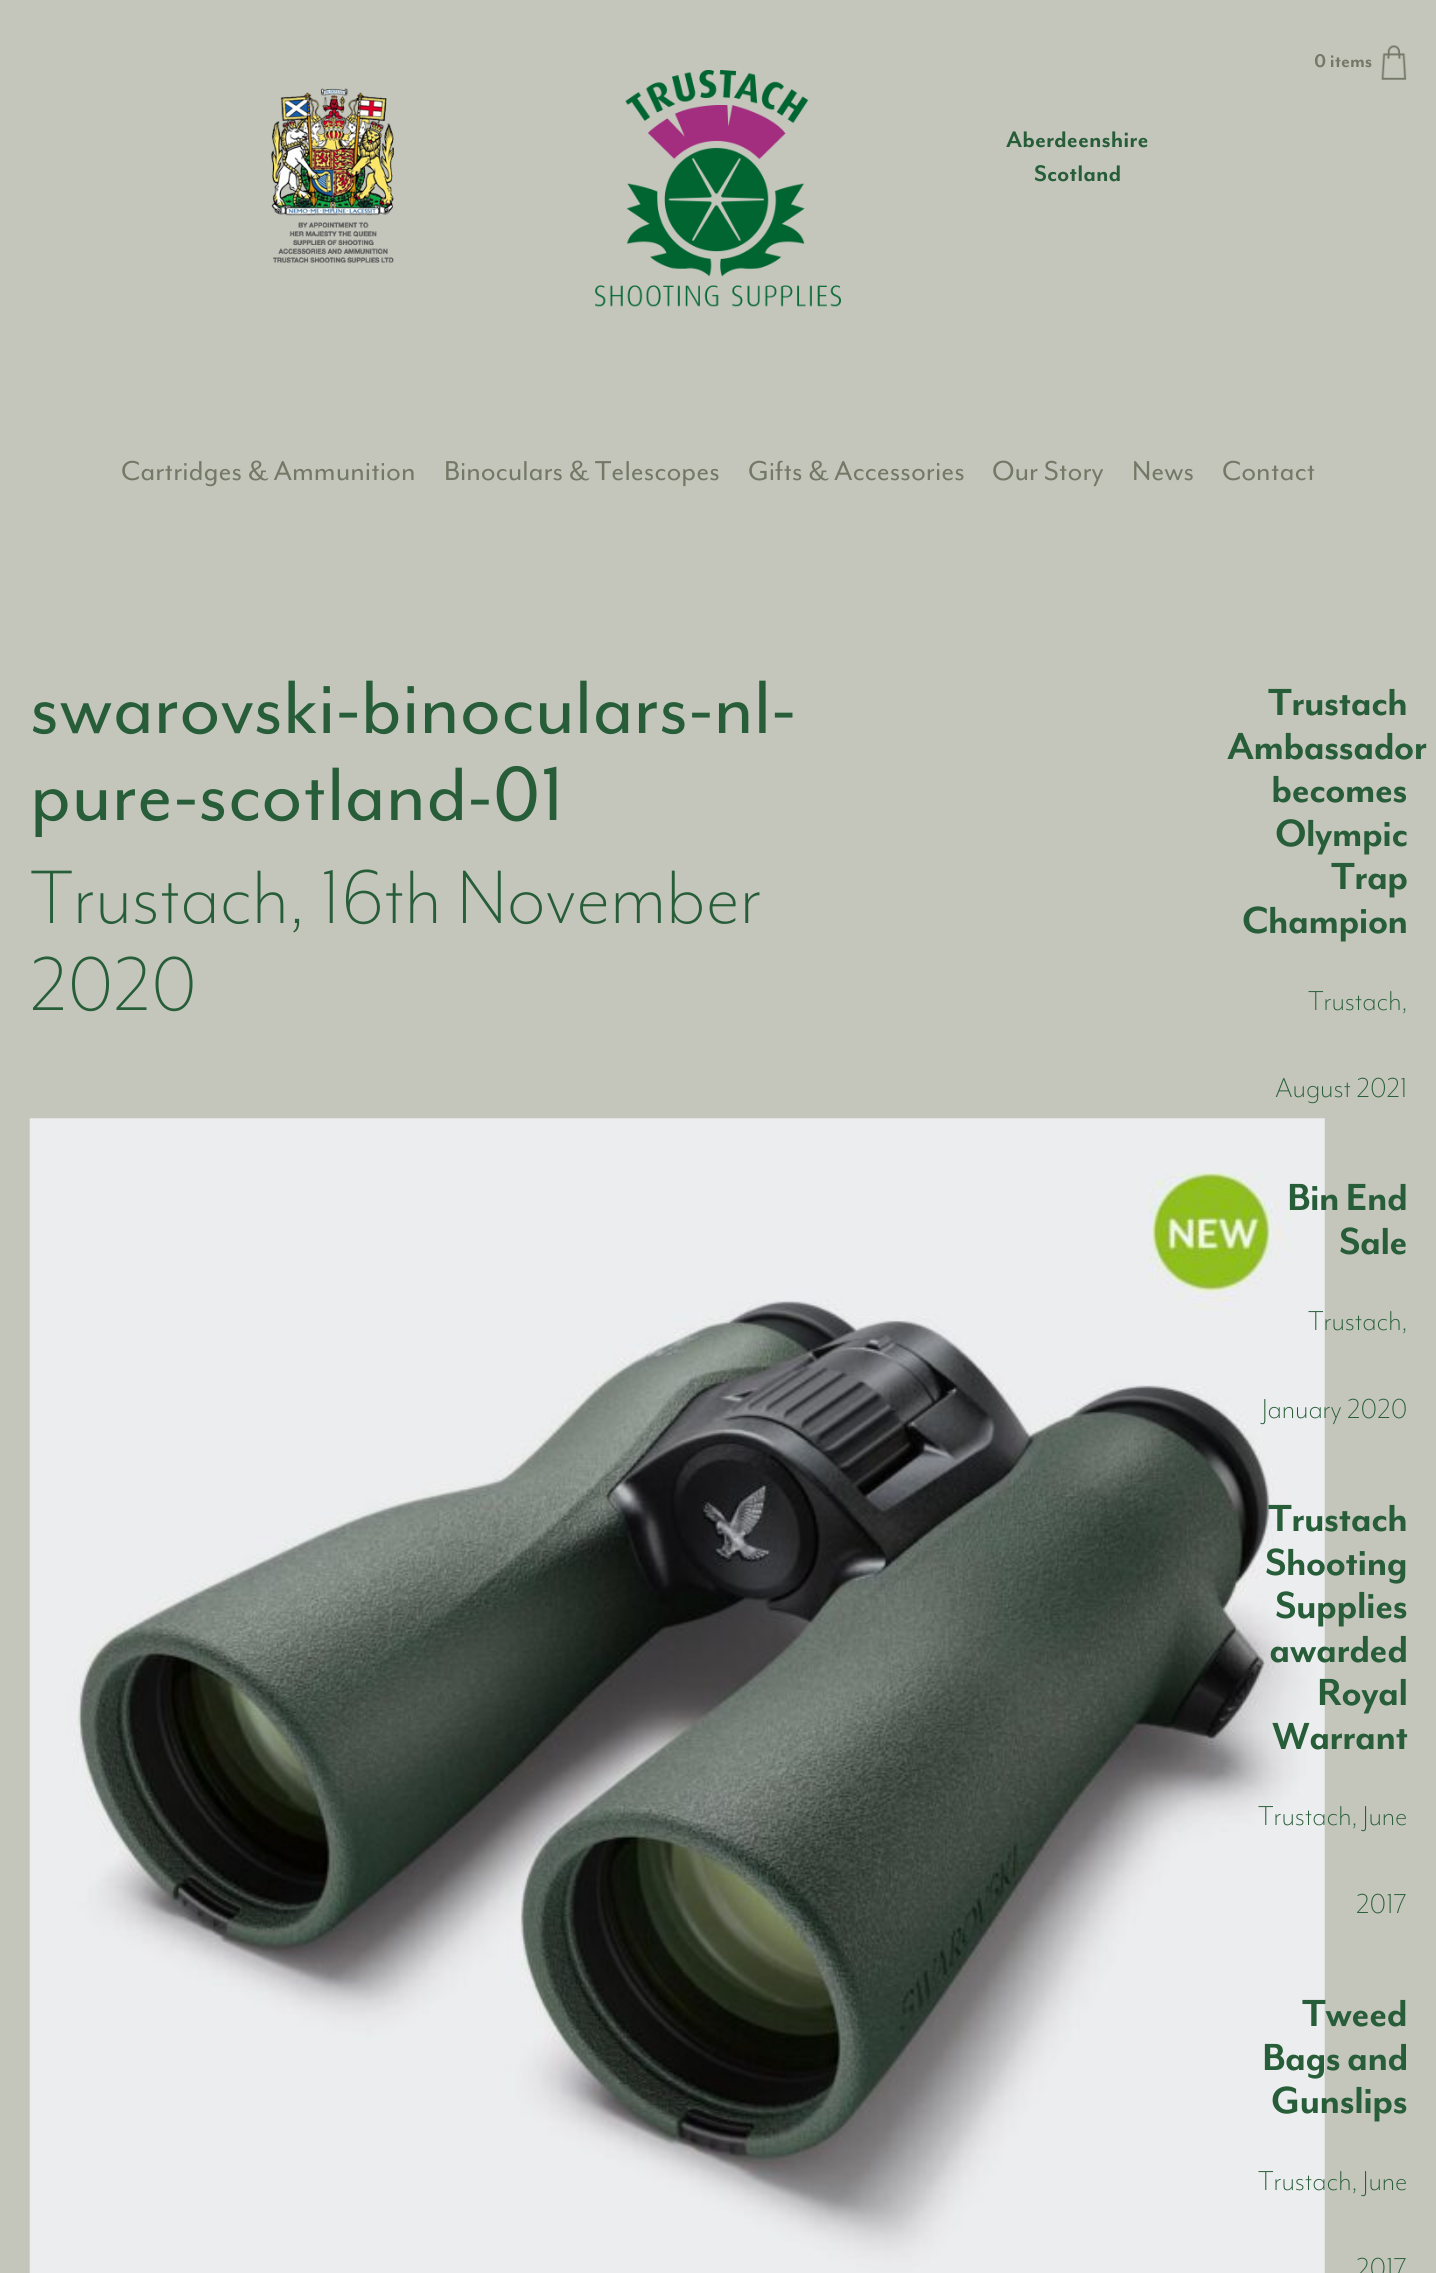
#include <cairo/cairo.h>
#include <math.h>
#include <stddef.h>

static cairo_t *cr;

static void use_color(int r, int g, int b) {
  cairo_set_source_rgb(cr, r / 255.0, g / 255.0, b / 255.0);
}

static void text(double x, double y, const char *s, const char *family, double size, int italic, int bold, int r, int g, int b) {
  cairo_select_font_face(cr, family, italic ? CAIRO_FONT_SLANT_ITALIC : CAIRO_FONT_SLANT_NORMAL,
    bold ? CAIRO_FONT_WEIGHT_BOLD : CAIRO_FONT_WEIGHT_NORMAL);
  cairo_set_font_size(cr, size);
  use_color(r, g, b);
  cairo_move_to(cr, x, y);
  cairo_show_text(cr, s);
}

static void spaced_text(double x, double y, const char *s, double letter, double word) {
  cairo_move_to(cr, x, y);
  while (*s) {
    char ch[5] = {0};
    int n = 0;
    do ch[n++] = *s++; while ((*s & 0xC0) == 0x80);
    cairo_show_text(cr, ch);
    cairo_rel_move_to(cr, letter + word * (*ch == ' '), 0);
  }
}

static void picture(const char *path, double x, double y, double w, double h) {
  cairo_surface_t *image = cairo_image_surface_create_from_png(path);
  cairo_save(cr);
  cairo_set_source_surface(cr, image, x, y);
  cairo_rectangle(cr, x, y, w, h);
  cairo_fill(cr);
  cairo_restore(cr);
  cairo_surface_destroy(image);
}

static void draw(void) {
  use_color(196, 198, 188);
  cairo_paint(cr);
  picture("img_01.png", 1381, 45, 26, 35);
  picture("img_02.png", 271, 88, 123, 175);
  picture("img_03.png", 595, 70, 246, 237);
  picture("img_04.png", 29, 1118, 1296, 1155);
  text(1314, 67, "0 items", "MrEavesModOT", 21, 0, 1, 116, 120, 102);
  text(1006, 147, "Aberdeenshire", "MrEavesModOT", 26, 0, 1, 39, 93, 56);
  text(1034, 181, "Scotland", "MrEavesModOT", 26, 0, 1, 39, 93, 56);
  text(121, 480, "Cartridges & Ammunition", "MrEavesModOT", 31.5, 0, 0, 116, 120, 102);
  text(444, 480, "Binoculars & Telescopes", "MrEavesModOT", 31.5, 0, 0, 116, 120, 102);
  text(748, 480, "Gifts & Accessories", "MrEavesModOT", 31.5, 0, 0, 116, 120, 102);
  text(992, 480, "Our Story", "MrEavesModOT", 31.5, 0, 0, 116, 120, 102);
  text(1132, 480, "News", "MrEavesModOT", 31.5, 0, 0, 116, 120, 102);
  text(1222, 480, "Contact", "MrEavesModOT", 31.5, 0, 0, 116, 120, 102);
  text(30, 733, "swarovski-binoculars-nl-", "MrEavesModOT", 87.25, 0, 0, 39, 93, 56);
  text(30, 820, "pure-scotland-01", "MrEavesModOT", 87.25, 0, 0, 39, 93, 56);
  text(30, 923, "Trustach, 16th November", "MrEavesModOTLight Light", 87.25, 0, 0, 39, 93, 56);
  text(30, 1010, "2020", "MrEavesModOTLight Light", 87.25, 0, 0, 39, 93, 56);
  cairo_select_font_face(cr, "MrEavesModOT", CAIRO_FONT_SLANT_NORMAL, CAIRO_FONT_WEIGHT_BOLD);
  cairo_set_font_size(cr, 43.5);
  spaced_text(1268, 715, "Trustach", -0.9, 0);
  spaced_text(1227, 759, "Ambassador", -0.9, 0);
  spaced_text(1271, 802, "becomes", -0.9, 0);
  spaced_text(1275, 846, "Olympic", -0.9, 0);
  spaced_text(1331, 889, "Trap", -0.9, 0);
  spaced_text(1242, 933, "Champion", -0.9, 0);
  text(1308, 1010, "Trustach,", "MrEavesModOTLight Light", 31.5, 0, 0, 39, 93, 56);
  text(1275, 1097, "August 2021", "MrEavesModOTLight Light", 31.5, 0, 0, 39, 93, 56);
  cairo_select_font_face(cr, "MrEavesModOT", CAIRO_FONT_SLANT_NORMAL, CAIRO_FONT_WEIGHT_BOLD);
  cairo_set_font_size(cr, 43.5);
  spaced_text(1287, 1210, "Bin End", -0.9, 0);
  spaced_text(1339, 1254, "Sale", -0.9, 0);
  text(1308, 1330, "Trustach,", "MrEavesModOTLight Light", 31.5, 0, 0, 39, 93, 56);
  text(1262, 1418, "January 2020", "MrEavesModOTLight Light", 31.5, 0, 0, 39, 93, 56);
  cairo_select_font_face(cr, "MrEavesModOT", CAIRO_FONT_SLANT_NORMAL, CAIRO_FONT_WEIGHT_BOLD);
  cairo_set_font_size(cr, 43.5);
  spaced_text(1268, 1531, "Trustach", -0.9, 0);
  spaced_text(1265, 1575, "Shooting", -0.9, 0);
  spaced_text(1275, 1618, "Supplies", -0.9, 0);
  spaced_text(1269, 1662, "awarded", -0.9, 0);
  spaced_text(1317, 1705, "Royal", -0.9, 0);
  spaced_text(1272, 1749, "Warrant", -0.9, 0);
  text(1258, 1825, "Trustach, June", "MrEavesModOTLight Light", 31.5, 0, 0, 39, 93, 56);
  text(1356, 1913, "2017", "MrEavesModOTLight Light", 31.5, 0, 0, 39, 93, 56);
  cairo_select_font_face(cr, "MrEavesModOT", CAIRO_FONT_SLANT_NORMAL, CAIRO_FONT_WEIGHT_BOLD);
  cairo_set_font_size(cr, 43.5);
  spaced_text(1302, 2026, "Tweed", -0.9, 0);
  spaced_text(1262, 2070, "Bags and", -0.9, 0);
  spaced_text(1271, 2113, "Gunslips", -0.9, 0);
  text(1258, 2190, "Trustach, June", "MrEavesModOTLight Light", 31.5, 0, 0, 39, 93, 56);
  text(1356, 2277, "2017", "MrEavesModOTLight Light", 31.5, 0, 0, 39, 93, 56);
}

int main(void) {
  cairo_surface_t *surface = cairo_image_surface_create(CAIRO_FORMAT_RGB24, 1436, 2273);
  cr = cairo_create(surface);
  cairo_font_options_t *options = cairo_font_options_create();
  cairo_font_options_set_hint_metrics(options, CAIRO_HINT_METRICS_OFF);
  cairo_font_options_set_hint_style(options, CAIRO_HINT_STYLE_NONE);
  cairo_set_font_options(cr, options);
  cairo_set_miter_limit(cr, 4);
  draw();
  cairo_surface_write_to_png(surface, "out.png");
  cairo_font_options_destroy(options);
  cairo_destroy(cr);
  cairo_surface_destroy(surface);
  return 0;
}
